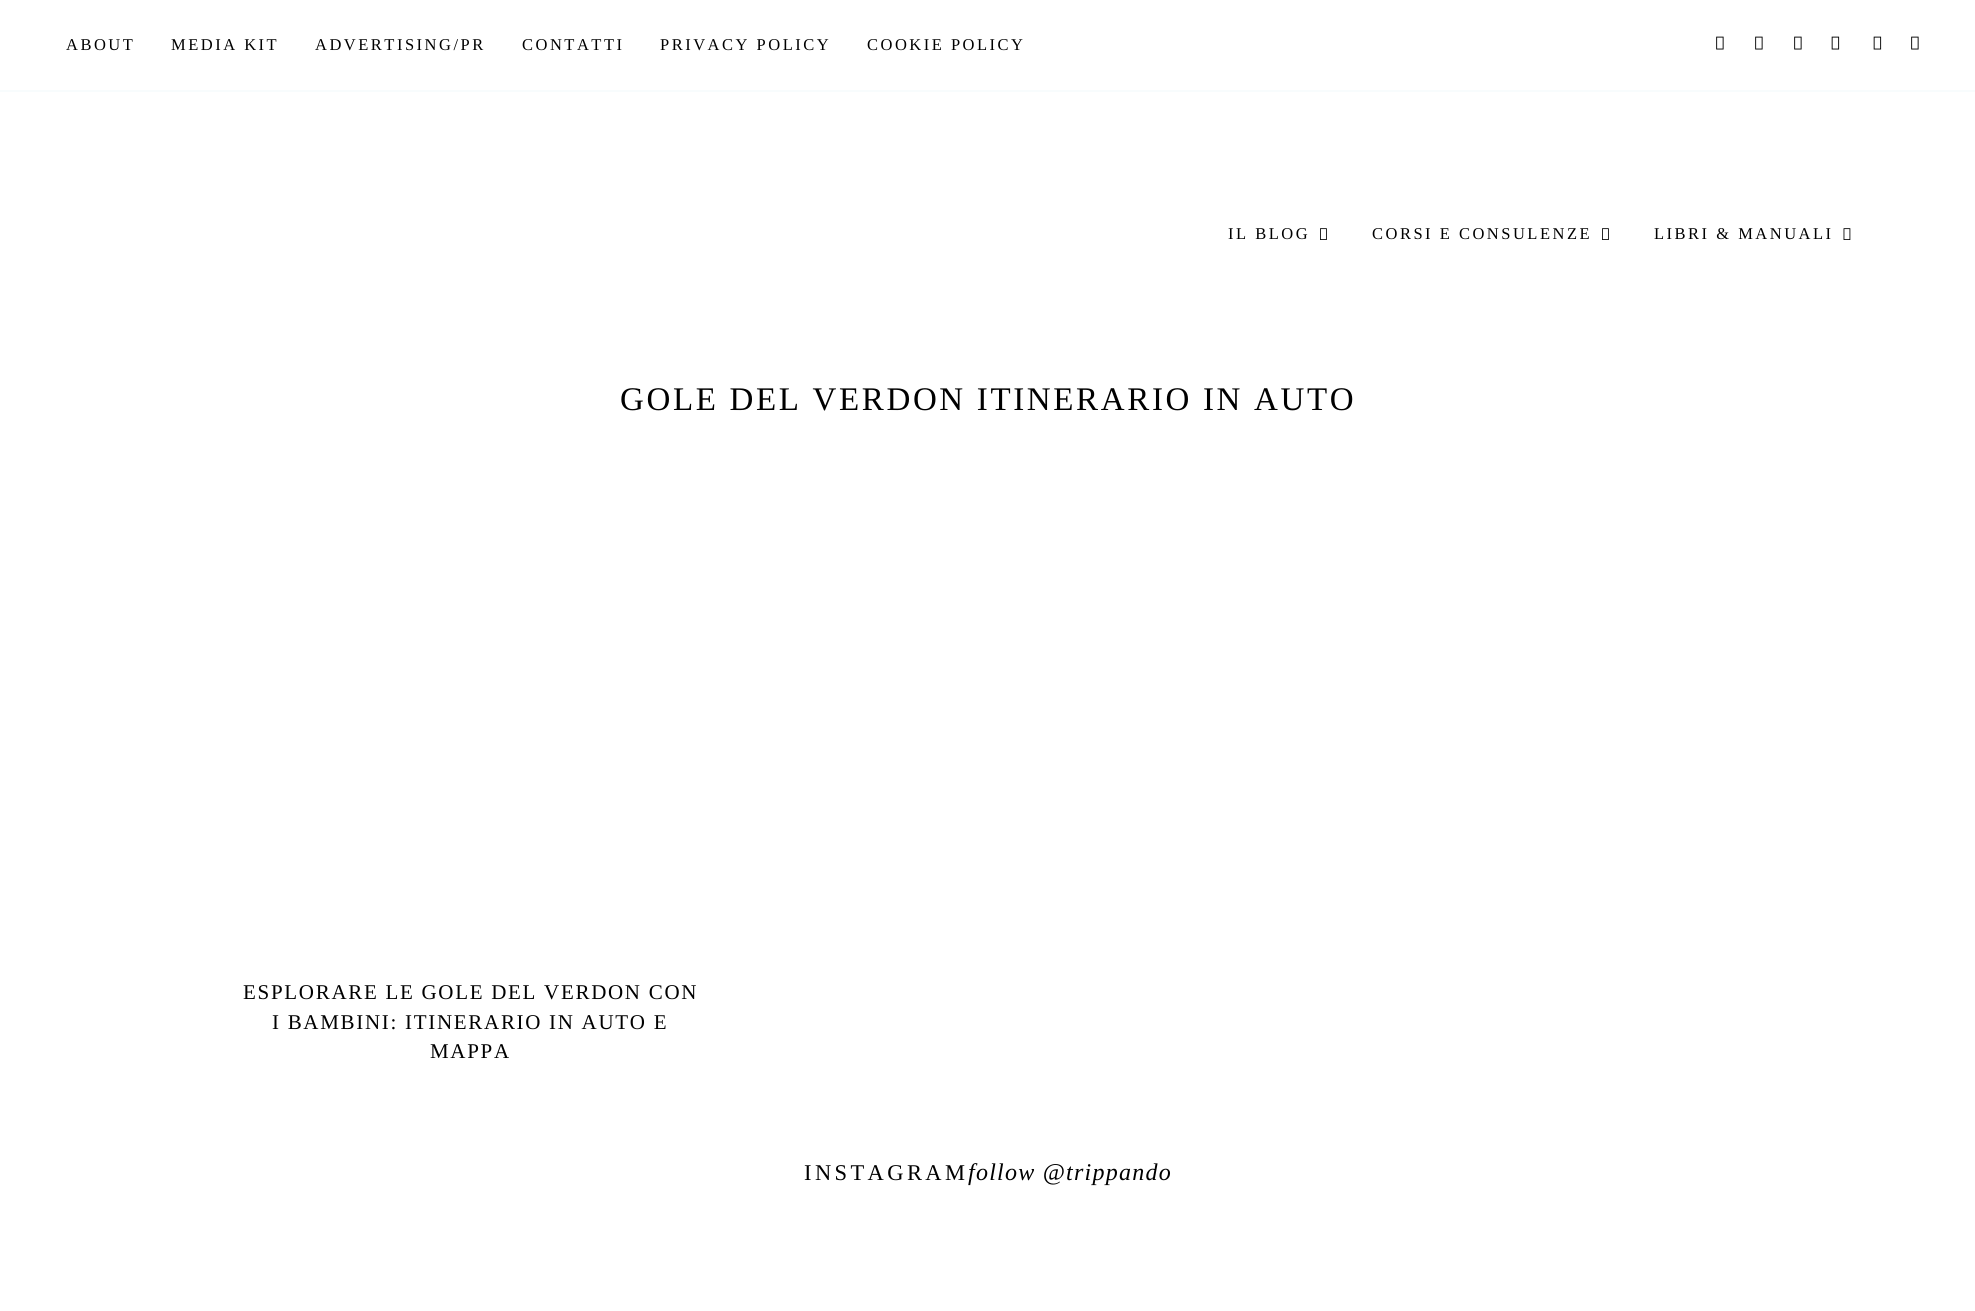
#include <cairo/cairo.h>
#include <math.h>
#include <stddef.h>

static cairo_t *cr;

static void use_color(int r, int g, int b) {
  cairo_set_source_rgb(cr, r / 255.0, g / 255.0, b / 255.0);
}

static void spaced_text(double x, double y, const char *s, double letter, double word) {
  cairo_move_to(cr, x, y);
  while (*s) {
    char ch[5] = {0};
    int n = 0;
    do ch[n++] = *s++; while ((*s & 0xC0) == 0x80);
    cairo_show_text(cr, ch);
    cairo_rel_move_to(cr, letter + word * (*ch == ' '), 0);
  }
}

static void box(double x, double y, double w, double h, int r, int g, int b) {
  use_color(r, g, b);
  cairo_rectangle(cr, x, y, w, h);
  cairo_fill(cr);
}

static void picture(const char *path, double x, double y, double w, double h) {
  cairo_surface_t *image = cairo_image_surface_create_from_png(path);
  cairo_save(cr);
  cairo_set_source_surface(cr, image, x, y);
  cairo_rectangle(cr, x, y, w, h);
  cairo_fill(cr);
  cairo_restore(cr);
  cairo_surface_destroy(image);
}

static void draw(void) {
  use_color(255, 255, 255);
  cairo_paint(cr);
  box(0, 90, 1975, 2, 248, 252, 253);
  picture("img_01.png", 1716, 36, 8, 14);
  picture("img_01.png", 1755, 36, 8, 14);
  picture("img_01.png", 1794, 36, 8, 14);
  picture("img_02.png", 1831, 36, 9, 14);
  picture("img_02.png", 1873, 36, 9, 14);
  picture("img_01.png", 1911, 36, 8, 14);
  picture("img_03.png", 1320, 228, 7, 12);
  picture("img_03.png", 1602, 228, 7, 12);
  picture("img_04.png", 1843, 228, 8, 12);
  cairo_select_font_face(cr, "Liberation Serif", CAIRO_FONT_SLANT_NORMAL, CAIRO_FONT_WEIGHT_NORMAL);
  cairo_set_font_size(cr, 16.5);
  use_color(0, 0, 0);
  spaced_text(66, 50, "ABOUT", 2.5, 0);
  spaced_text(171, 50, "MEDIA KIT", 2.5, 0);
  spaced_text(315, 50, "ADVERTISING/PR", 2.5, 0);
  spaced_text(522, 50, "CONTATTI", 2.5, 0);
  spaced_text(660, 50, "PRIVACY POLICY", 2.5, 0);
  spaced_text(867, 50, "COOKIE POLICY", 2.5, 0);
  spaced_text(1228, 239, "IL BLOG", 2.5, 0);
  spaced_text(1372, 239, "CORSI E CONSULENZE", 2.5, 0);
  spaced_text(1654, 239, "LIBRI & MANUALI", 2.5, 0);
  cairo_set_font_size(cr, 33);
  spaced_text(620, 410, "GOLE DEL VERDON ITINERARIO IN AUTO", 2.65, 0);
  cairo_set_font_size(cr, 21);
  spaced_text(243, 999, "ESPLORARE LE GOLE DEL VERDON CON", 1.7, 0);
  spaced_text(272, 1029, "I BAMBINI: ITINERARIO IN AUTO E", 1.7, 0);
  spaced_text(430, 1058, "MAPPA", 1.7, 0);
  cairo_set_font_size(cr, 22.5);
  spaced_text(804, 1180, "INSTAGRAM", 3.4, 0);
  cairo_select_font_face(cr, "Liberation Serif", CAIRO_FONT_SLANT_ITALIC, CAIRO_FONT_WEIGHT_NORMAL);
  cairo_set_font_size(cr, 24);
  spaced_text(968, 1180, "follow @trippando", 1.25, 0);
}

int main(void) {
  cairo_surface_t *surface = cairo_image_surface_create(CAIRO_FORMAT_RGB24, 1975, 1311);
  cr = cairo_create(surface);
  cairo_font_options_t *options = cairo_font_options_create();
  cairo_font_options_set_hint_metrics(options, CAIRO_HINT_METRICS_OFF);
  cairo_font_options_set_hint_style(options, CAIRO_HINT_STYLE_NONE);
  cairo_set_font_options(cr, options);
  cairo_set_miter_limit(cr, 4);
  draw();
  cairo_surface_write_to_png(surface, "out.png");
  cairo_font_options_destroy(options);
  cairo_destroy(cr);
  cairo_surface_destroy(surface);
  return 0;
}
